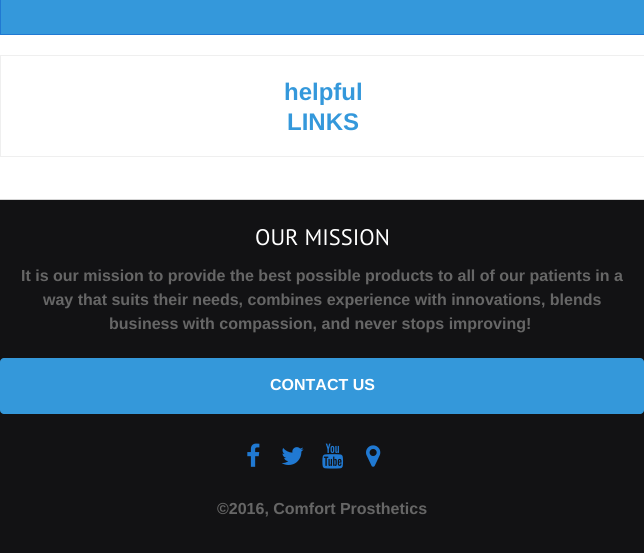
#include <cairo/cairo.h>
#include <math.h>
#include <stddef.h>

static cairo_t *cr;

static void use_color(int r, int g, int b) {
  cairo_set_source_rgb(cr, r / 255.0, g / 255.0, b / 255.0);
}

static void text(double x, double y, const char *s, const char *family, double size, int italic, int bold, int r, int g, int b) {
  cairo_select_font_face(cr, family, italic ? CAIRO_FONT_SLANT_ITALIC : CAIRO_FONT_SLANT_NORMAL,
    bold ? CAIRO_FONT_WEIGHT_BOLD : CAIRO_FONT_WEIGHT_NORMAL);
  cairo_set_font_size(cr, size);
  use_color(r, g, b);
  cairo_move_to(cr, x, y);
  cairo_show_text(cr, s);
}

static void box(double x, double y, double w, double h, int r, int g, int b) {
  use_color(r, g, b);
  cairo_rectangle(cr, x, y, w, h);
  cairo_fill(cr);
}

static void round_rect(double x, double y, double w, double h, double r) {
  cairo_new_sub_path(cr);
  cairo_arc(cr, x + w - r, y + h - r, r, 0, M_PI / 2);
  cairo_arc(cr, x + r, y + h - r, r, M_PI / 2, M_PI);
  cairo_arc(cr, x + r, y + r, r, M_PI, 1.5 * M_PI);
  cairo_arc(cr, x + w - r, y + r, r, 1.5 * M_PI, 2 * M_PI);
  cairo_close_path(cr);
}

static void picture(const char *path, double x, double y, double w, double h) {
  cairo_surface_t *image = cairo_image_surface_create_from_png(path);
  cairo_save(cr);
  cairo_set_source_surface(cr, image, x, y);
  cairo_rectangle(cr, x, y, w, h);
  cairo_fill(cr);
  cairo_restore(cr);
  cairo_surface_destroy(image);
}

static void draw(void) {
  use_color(255, 255, 255);
  cairo_paint(cr);
  box(0, 199, 644, 1, 213, 213, 213);
  use_color(52, 152, 219);
  cairo_rectangle(cr, 0.5, -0.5, 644, 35);
  cairo_fill_preserve(cr);
  use_color(32, 121, 210);
  cairo_set_line_width(cr, 1);
  cairo_stroke(cr);
  cairo_rectangle(cr, 0.5, 55.5, 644, 101);
  use_color(239, 239, 239);
  cairo_stroke(cr);
  box(0, 200, 644, 353, 18, 18, 20);
  use_color(52, 152, 218);
  round_rect(0, 358, 644, 56, 4);
  cairo_fill(cr);
  picture("img_01.png", 247, 443, 13, 24);
  picture("img_02.png", 281, 447, 23, 18);
  picture("img_03.png", 322, 443, 22, 26);
  picture("img_04.png", 366, 445, 15, 22);
  text(284, 100, "helpful", "Liberation Sans", 24, 0, 1, 52, 152, 219);
  text(287, 130, "LINKS", "Liberation Sans", 24, 0, 1, 52, 152, 219);
  text(255, 245, "OUR MISSION", "PT Sans", 22.5, 0, 0, 255, 255, 255);
  text(21, 281, "It is our mission to provide the best possible products to all of our patients in a", "Liberation Sans", 16, 0, 1, 102, 102, 102);
  text(43, 305, "way that suits their needs, combines experience with innovations, blends", "Liberation Sans", 16, 0, 1, 102, 102, 102);
  text(109, 329, "business with compassion, and never stops improving!", "Liberation Sans", 16, 0, 1, 102, 102, 102);
  text(270, 390, "CONTACT US", "Liberation Sans", 16, 0, 1, 255, 255, 255);
  text(217, 514, "©2016, Comfort Prosthetics", "Liberation Sans", 16, 0, 1, 102, 102, 102);
}

int main(void) {
  cairo_surface_t *surface = cairo_image_surface_create(CAIRO_FORMAT_RGB24, 644, 553);
  cr = cairo_create(surface);
  cairo_font_options_t *options = cairo_font_options_create();
  cairo_font_options_set_hint_metrics(options, CAIRO_HINT_METRICS_OFF);
  cairo_font_options_set_hint_style(options, CAIRO_HINT_STYLE_NONE);
  cairo_set_font_options(cr, options);
  cairo_set_miter_limit(cr, 4);
  draw();
  cairo_surface_write_to_png(surface, "out.png");
  cairo_font_options_destroy(options);
  cairo_destroy(cr);
  cairo_surface_destroy(surface);
  return 0;
}
